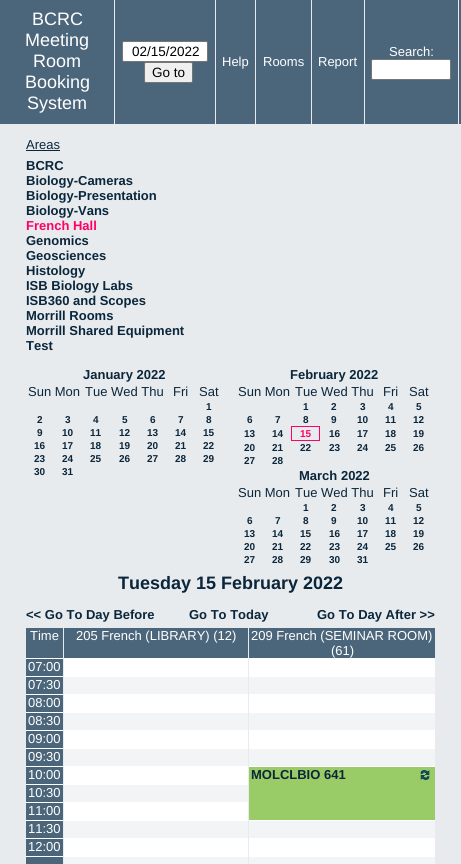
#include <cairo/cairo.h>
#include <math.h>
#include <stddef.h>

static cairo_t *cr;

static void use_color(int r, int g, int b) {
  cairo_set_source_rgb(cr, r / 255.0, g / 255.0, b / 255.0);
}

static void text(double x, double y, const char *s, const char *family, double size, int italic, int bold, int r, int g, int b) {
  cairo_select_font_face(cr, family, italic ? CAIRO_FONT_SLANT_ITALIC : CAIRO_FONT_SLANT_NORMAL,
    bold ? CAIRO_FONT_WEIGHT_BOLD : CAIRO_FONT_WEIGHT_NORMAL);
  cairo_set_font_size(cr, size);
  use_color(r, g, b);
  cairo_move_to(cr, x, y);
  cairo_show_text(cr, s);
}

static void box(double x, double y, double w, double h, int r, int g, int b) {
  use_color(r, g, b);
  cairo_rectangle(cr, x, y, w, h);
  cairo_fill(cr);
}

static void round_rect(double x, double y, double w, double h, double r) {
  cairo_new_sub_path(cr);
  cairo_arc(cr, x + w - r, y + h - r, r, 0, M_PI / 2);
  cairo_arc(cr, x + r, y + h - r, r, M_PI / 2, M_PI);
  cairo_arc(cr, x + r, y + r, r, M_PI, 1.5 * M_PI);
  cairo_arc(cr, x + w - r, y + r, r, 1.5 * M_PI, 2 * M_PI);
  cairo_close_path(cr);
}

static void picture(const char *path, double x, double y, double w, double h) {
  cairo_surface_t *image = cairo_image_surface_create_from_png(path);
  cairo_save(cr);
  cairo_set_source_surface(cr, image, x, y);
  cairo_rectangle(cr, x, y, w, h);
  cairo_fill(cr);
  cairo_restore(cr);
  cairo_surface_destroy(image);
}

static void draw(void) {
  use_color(231, 235, 238);
  cairo_paint(cr);
  box(0, 0, 461, 124, 75, 102, 123);
  box(114, 0, 1, 124, 231, 235, 238);
  use_color(255, 255, 255);
  round_rect(122.5, 41.5, 85, 20, 1.5);
  cairo_fill_preserve(cr);
  use_color(118, 118, 118);
  cairo_set_line_width(cr, 1);
  cairo_stroke(cr);
  use_color(239, 239, 239);
  round_rect(144.5, 62.5, 48, 20, 1.5);
  cairo_fill_preserve(cr);
  use_color(118, 118, 118);
  cairo_stroke(cr);
  box(364, 0, 1, 124, 231, 235, 238);
  use_color(255, 255, 255);
  round_rect(371.5, 59.5, 79, 20, 1.5);
  cairo_fill_preserve(cr);
  use_color(118, 118, 118);
  cairo_stroke(cr);
  box(458, 0, 1, 124, 231, 235, 238);
  box(215, 0, 1, 124, 231, 235, 238);
  box(255, 0, 1, 124, 231, 235, 238);
  box(311, 0, 1, 124, 231, 235, 238);
  box(26, 150, 34, 1, 11, 38, 59);
  box(291, 426, 29, 1, 255, 0, 102);
  box(319, 426, 1, 15, 255, 0, 102);
  box(291, 440, 29, 1, 255, 0, 102);
  box(291, 426, 1, 15, 255, 0, 102);
  box(26, 628, 37, 30, 75, 102, 123);
  box(64, 628, 184, 30, 75, 102, 123);
  box(249, 628, 186, 30, 75, 102, 123);
  box(26, 659, 37, 17, 75, 102, 123);
  box(26, 658, 37, 1, 255, 255, 255);
  box(64, 658, 184, 18, 255, 255, 255);
  box(249, 658, 186, 18, 255, 255, 255);
  box(26, 677, 37, 17, 75, 102, 123);
  box(26, 676, 409, 1, 255, 255, 255);
  box(64, 677, 184, 17, 242, 244, 246);
  box(63, 676, 1, 1, 231, 235, 238);
  box(249, 677, 186, 17, 242, 244, 246);
  box(248, 676, 1, 1, 231, 235, 238);
  box(26, 695, 37, 17, 75, 102, 123);
  box(26, 694, 37, 1, 255, 255, 255);
  box(64, 694, 184, 18, 255, 255, 255);
  box(249, 694, 186, 18, 255, 255, 255);
  box(26, 713, 37, 17, 75, 102, 123);
  box(26, 712, 409, 1, 255, 255, 255);
  box(64, 713, 184, 17, 242, 244, 246);
  box(63, 712, 1, 1, 231, 235, 238);
  box(249, 713, 186, 17, 242, 244, 246);
  box(248, 712, 1, 1, 231, 235, 238);
  box(26, 731, 37, 17, 75, 102, 123);
  box(26, 730, 37, 1, 255, 255, 255);
  box(64, 730, 184, 18, 255, 255, 255);
  box(249, 730, 186, 18, 255, 255, 255);
  box(26, 749, 37, 17, 75, 102, 123);
  box(26, 748, 409, 1, 255, 255, 255);
  box(64, 749, 184, 17, 242, 244, 246);
  box(63, 748, 1, 1, 231, 235, 238);
  box(249, 749, 186, 17, 242, 244, 246);
  box(248, 748, 1, 1, 231, 235, 238);
  box(26, 767, 37, 17, 75, 102, 123);
  box(26, 766, 37, 1, 255, 255, 255);
  box(64, 766, 184, 18, 255, 255, 255);
  box(249, 767, 186, 53, 153, 204, 102);
  box(248, 766, 187, 1, 255, 255, 255);
  box(248, 766, 1, 1, 231, 235, 238);
  picture("img_01.png", 420, 770, 10, 10);
  box(26, 785, 37, 17, 75, 102, 123);
  box(26, 784, 222, 1, 255, 255, 255);
  box(64, 785, 184, 17, 242, 244, 246);
  box(63, 784, 1, 1, 231, 235, 238);
  box(26, 803, 37, 17, 75, 102, 123);
  box(26, 802, 37, 1, 255, 255, 255);
  box(64, 802, 184, 18, 255, 255, 255);
  box(26, 821, 37, 17, 75, 102, 123);
  box(26, 820, 409, 1, 255, 255, 255);
  box(64, 821, 184, 17, 242, 244, 246);
  box(63, 820, 1, 1, 231, 235, 238);
  box(249, 821, 186, 17, 242, 244, 246);
  box(248, 820, 1, 1, 231, 235, 238);
  box(26, 839, 37, 17, 75, 102, 123);
  box(26, 838, 37, 1, 255, 255, 255);
  box(64, 838, 184, 18, 255, 255, 255);
  box(249, 838, 186, 18, 255, 255, 255);
  box(26, 857, 37, 7, 75, 102, 123);
  box(26, 856, 409, 1, 255, 255, 255);
  box(63, 857, 372, 7, 242, 244, 246);
  box(63, 856, 1, 8, 231, 235, 238);
  box(248, 856, 1, 8, 231, 235, 238);
  text(32, 25, "BCRC", "Liberation Sans", 18, 0, 0, 255, 255, 255);
  text(25, 46, "Meeting", "Liberation Sans", 18, 0, 0, 255, 255, 255);
  text(33, 67, "Room", "Liberation Sans", 18, 0, 0, 255, 255, 255);
  text(25, 88, "Booking", "Liberation Sans", 18, 0, 0, 255, 255, 255);
  text(27, 109, "System", "Liberation Sans", 18, 0, 0, 255, 255, 255);
  text(132, 56, "02/15/2022", "Liberation Sans", 13.5, 0, 0, 0, 0, 0);
  text(152, 77, "Go to", "Liberation Sans", 13.5, 0, 0, 0, 0, 0);
  text(389, 56, "Search:", "Liberation Sans", 13, 0, 0, 255, 255, 255);
  text(222, 66, "Help", "Liberation Sans", 13, 0, 0, 255, 255, 255);
  text(263, 66, "Rooms", "Liberation Sans", 13, 0, 0, 255, 255, 255);
  text(318, 66, "Report", "Liberation Sans", 13, 0, 0, 255, 255, 255);
  text(26, 149, "Areas", "Liberation Sans", 13, 0, 0, 11, 38, 59);
  text(26, 170, "BCRC", "Liberation Sans", 13, 0, 1, 11, 38, 59);
  text(26, 185, "Biology-Cameras", "Liberation Sans", 13, 0, 1, 11, 38, 59);
  text(26, 200, "Biology-Presentation", "Liberation Sans", 13, 0, 1, 11, 38, 59);
  text(26, 215, "Biology-Vans", "Liberation Sans", 13, 0, 1, 11, 38, 59);
  text(26, 230, "French Hall", "Liberation Sans", 13, 0, 1, 255, 0, 102);
  text(26, 245, "Genomics", "Liberation Sans", 13, 0, 1, 11, 38, 59);
  text(26, 260, "Geosciences", "Liberation Sans", 13, 0, 1, 11, 38, 59);
  text(26, 275, "Histology", "Liberation Sans", 13, 0, 1, 11, 38, 59);
  text(26, 290, "ISB Biology Labs", "Liberation Sans", 13, 0, 1, 11, 38, 59);
  text(26, 305, "ISB360 and Scopes", "Liberation Sans", 13, 0, 1, 11, 38, 59);
  text(26, 320, "Morrill Rooms", "Liberation Sans", 13, 0, 1, 11, 38, 59);
  text(26, 335, "Morrill Shared Equipment", "Liberation Sans", 13, 0, 1, 11, 38, 59);
  text(26, 350, "Test", "Liberation Sans", 13, 0, 1, 11, 38, 59);
  text(83, 379, "January 2022", "Liberation Sans", 13, 0, 1, 11, 38, 59);
  text(28, 396, "Sun Mon", "Liberation Sans", 13, 0, 0, 11, 38, 59);
  text(85, 396, "Tue Wed Thu", "Liberation Sans", 13, 0, 0, 11, 38, 59);
  text(173, 396, "Fri", "Liberation Sans", 13, 0, 0, 11, 38, 59);
  text(199, 396, "Sat", "Liberation Sans", 13, 0, 0, 11, 38, 59);
  text(206, 410, "1", "Liberation Sans", 10, 0, 1, 11, 38, 59);
  text(37, 423, "2", "Liberation Sans", 10, 0, 1, 11, 38, 59);
  text(65, 423, "3", "Liberation Sans", 10, 0, 1, 11, 38, 59);
  text(93, 423, "4", "Liberation Sans", 10, 0, 1, 11, 38, 59);
  text(122, 423, "5", "Liberation Sans", 10, 0, 1, 11, 38, 59);
  text(150, 423, "6", "Liberation Sans", 10, 0, 1, 11, 38, 59);
  text(178, 423, "7", "Liberation Sans", 10, 0, 1, 11, 38, 59);
  text(206, 423, "8", "Liberation Sans", 10, 0, 1, 11, 38, 59);
  text(37, 436, "9", "Liberation Sans", 10, 0, 1, 11, 38, 59);
  text(62, 436, "10", "Liberation Sans", 10, 0, 1, 11, 38, 59);
  text(90, 436, "11", "Liberation Sans", 10, 0, 1, 11, 38, 59);
  text(119, 436, "12", "Liberation Sans", 10, 0, 1, 11, 38, 59);
  text(147, 436, "13", "Liberation Sans", 10, 0, 1, 11, 38, 59);
  text(175, 436, "14", "Liberation Sans", 10, 0, 1, 11, 38, 59);
  text(203, 436, "15", "Liberation Sans", 10, 0, 1, 11, 38, 59);
  text(34, 449, "16", "Liberation Sans", 10, 0, 1, 11, 38, 59);
  text(62, 449, "17", "Liberation Sans", 10, 0, 1, 11, 38, 59);
  text(90, 449, "18", "Liberation Sans", 10, 0, 1, 11, 38, 59);
  text(119, 449, "19", "Liberation Sans", 10, 0, 1, 11, 38, 59);
  text(147, 449, "20", "Liberation Sans", 10, 0, 1, 11, 38, 59);
  text(175, 449, "21", "Liberation Sans", 10, 0, 1, 11, 38, 59);
  text(203, 449, "22", "Liberation Sans", 10, 0, 1, 11, 38, 59);
  text(34, 462, "23", "Liberation Sans", 10, 0, 1, 11, 38, 59);
  text(62, 462, "24", "Liberation Sans", 10, 0, 1, 11, 38, 59);
  text(90, 462, "25", "Liberation Sans", 10, 0, 1, 11, 38, 59);
  text(119, 462, "26", "Liberation Sans", 10, 0, 1, 11, 38, 59);
  text(147, 462, "27", "Liberation Sans", 10, 0, 1, 11, 38, 59);
  text(175, 462, "28", "Liberation Sans", 10, 0, 1, 11, 38, 59);
  text(203, 462, "29", "Liberation Sans", 10, 0, 1, 11, 38, 59);
  text(34, 475, "30", "Liberation Sans", 10, 0, 1, 11, 38, 59);
  text(62, 475, "31", "Liberation Sans", 10, 0, 1, 11, 38, 59);
  text(290, 379, "February 2022", "Liberation Sans", 13, 0, 1, 11, 38, 59);
  text(238, 396, "Sun Mon", "Liberation Sans", 13, 0, 0, 11, 38, 59);
  text(295, 396, "Tue Wed Thu", "Liberation Sans", 13, 0, 0, 11, 38, 59);
  text(383, 396, "Fri", "Liberation Sans", 13, 0, 0, 11, 38, 59);
  text(409, 396, "Sat", "Liberation Sans", 13, 0, 0, 11, 38, 59);
  text(303, 410, "1", "Liberation Sans", 10, 0, 1, 11, 38, 59);
  text(331, 410, "2", "Liberation Sans", 10, 0, 1, 11, 38, 59);
  text(360, 410, "3", "Liberation Sans", 10, 0, 1, 11, 38, 59);
  text(388, 410, "4", "Liberation Sans", 10, 0, 1, 11, 38, 59);
  text(416, 410, "5", "Liberation Sans", 10, 0, 1, 11, 38, 59);
  text(247, 423, "6", "Liberation Sans", 10, 0, 1, 11, 38, 59);
  text(275, 423, "7", "Liberation Sans", 10, 0, 1, 11, 38, 59);
  text(303, 423, "8", "Liberation Sans", 10, 0, 1, 11, 38, 59);
  text(331, 423, "9", "Liberation Sans", 10, 0, 1, 11, 38, 59);
  text(357, 423, "10", "Liberation Sans", 10, 0, 1, 11, 38, 59);
  text(385, 423, "11", "Liberation Sans", 10, 0, 1, 11, 38, 59);
  text(413, 423, "12", "Liberation Sans", 10, 0, 1, 11, 38, 59);
  text(244, 437, "13", "Liberation Sans", 10, 0, 1, 11, 38, 59);
  text(272, 437, "14", "Liberation Sans", 10, 0, 1, 11, 38, 59);
  text(300, 437, "15", "Liberation Sans", 10, 0, 1, 255, 0, 102);
  text(329, 437, "16", "Liberation Sans", 10, 0, 1, 11, 38, 59);
  text(357, 437, "17", "Liberation Sans", 10, 0, 1, 11, 38, 59);
  text(385, 437, "18", "Liberation Sans", 10, 0, 1, 11, 38, 59);
  text(413, 437, "19", "Liberation Sans", 10, 0, 1, 11, 38, 59);
  text(244, 451, "20", "Liberation Sans", 10, 0, 1, 11, 38, 59);
  text(272, 451, "21", "Liberation Sans", 10, 0, 1, 11, 38, 59);
  text(300, 451, "22", "Liberation Sans", 10, 0, 1, 11, 38, 59);
  text(329, 451, "23", "Liberation Sans", 10, 0, 1, 11, 38, 59);
  text(357, 451, "24", "Liberation Sans", 10, 0, 1, 11, 38, 59);
  text(385, 451, "25", "Liberation Sans", 10, 0, 1, 11, 38, 59);
  text(413, 451, "26", "Liberation Sans", 10, 0, 1, 11, 38, 59);
  text(244, 464, "27", "Liberation Sans", 10, 0, 1, 11, 38, 59);
  text(272, 464, "28", "Liberation Sans", 10, 0, 1, 11, 38, 59);
  text(299, 480, "March 2022", "Liberation Sans", 13, 0, 1, 11, 38, 59);
  text(238, 497, "Sun Mon", "Liberation Sans", 13, 0, 0, 11, 38, 59);
  text(295, 497, "Tue Wed Thu", "Liberation Sans", 13, 0, 0, 11, 38, 59);
  text(383, 497, "Fri", "Liberation Sans", 13, 0, 0, 11, 38, 59);
  text(409, 497, "Sat", "Liberation Sans", 13, 0, 0, 11, 38, 59);
  text(303, 511, "1", "Liberation Sans", 10, 0, 1, 11, 38, 59);
  text(331, 511, "2", "Liberation Sans", 10, 0, 1, 11, 38, 59);
  text(360, 511, "3", "Liberation Sans", 10, 0, 1, 11, 38, 59);
  text(388, 511, "4", "Liberation Sans", 10, 0, 1, 11, 38, 59);
  text(416, 511, "5", "Liberation Sans", 10, 0, 1, 11, 38, 59);
  text(247, 524, "6", "Liberation Sans", 10, 0, 1, 11, 38, 59);
  text(275, 524, "7", "Liberation Sans", 10, 0, 1, 11, 38, 59);
  text(303, 524, "8", "Liberation Sans", 10, 0, 1, 11, 38, 59);
  text(331, 524, "9", "Liberation Sans", 10, 0, 1, 11, 38, 59);
  text(357, 524, "10", "Liberation Sans", 10, 0, 1, 11, 38, 59);
  text(385, 524, "11", "Liberation Sans", 10, 0, 1, 11, 38, 59);
  text(413, 524, "12", "Liberation Sans", 10, 0, 1, 11, 38, 59);
  text(244, 537, "13", "Liberation Sans", 10, 0, 1, 11, 38, 59);
  text(272, 537, "14", "Liberation Sans", 10, 0, 1, 11, 38, 59);
  text(300, 537, "15", "Liberation Sans", 10, 0, 1, 11, 38, 59);
  text(329, 537, "16", "Liberation Sans", 10, 0, 1, 11, 38, 59);
  text(357, 537, "17", "Liberation Sans", 10, 0, 1, 11, 38, 59);
  text(385, 537, "18", "Liberation Sans", 10, 0, 1, 11, 38, 59);
  text(413, 537, "19", "Liberation Sans", 10, 0, 1, 11, 38, 59);
  text(244, 550, "20", "Liberation Sans", 10, 0, 1, 11, 38, 59);
  text(272, 550, "21", "Liberation Sans", 10, 0, 1, 11, 38, 59);
  text(300, 550, "22", "Liberation Sans", 10, 0, 1, 11, 38, 59);
  text(329, 550, "23", "Liberation Sans", 10, 0, 1, 11, 38, 59);
  text(357, 550, "24", "Liberation Sans", 10, 0, 1, 11, 38, 59);
  text(385, 550, "25", "Liberation Sans", 10, 0, 1, 11, 38, 59);
  text(413, 550, "26", "Liberation Sans", 10, 0, 1, 11, 38, 59);
  text(244, 563, "27", "Liberation Sans", 10, 0, 1, 11, 38, 59);
  text(272, 563, "28", "Liberation Sans", 10, 0, 1, 11, 38, 59);
  text(300, 563, "29", "Liberation Sans", 10, 0, 1, 11, 38, 59);
  text(329, 563, "30", "Liberation Sans", 10, 0, 1, 11, 38, 59);
  text(357, 563, "31", "Liberation Sans", 10, 0, 1, 11, 38, 59);
  text(118, 589, "Tuesday 15 February 2022", "Liberation Sans", 18, 0, 1, 11, 38, 59);
  text(26, 619, "<< Go To Day Before", "Liberation Sans", 13, 0, 1, 11, 38, 59);
  text(189, 619, "Go To Today", "Liberation Sans", 13, 0, 1, 11, 38, 59);
  text(317, 619, "Go To Day After >>", "Liberation Sans", 13, 0, 1, 11, 38, 59);
  text(30, 640, "Time", "Liberation Sans", 13, 0, 0, 255, 255, 255);
  text(76, 640, "205 French (LIBRARY) (12)", "Liberation Sans", 13, 0, 0, 255, 255, 255);
  text(251, 640, "209 French (SEMINAR ROOM)", "Liberation Sans", 13, 0, 0, 255, 255, 255);
  text(331, 655, "(61)", "Liberation Sans", 13, 0, 0, 255, 255, 255);
  text(28, 671, "07:00", "Liberation Sans", 13, 0, 0, 255, 255, 255);
  text(28, 689, "07:30", "Liberation Sans", 13, 0, 0, 255, 255, 255);
  text(28, 707, "08:00", "Liberation Sans", 13, 0, 0, 255, 255, 255);
  text(28, 725, "08:30", "Liberation Sans", 13, 0, 0, 255, 255, 255);
  text(28, 743, "09:00", "Liberation Sans", 13, 0, 0, 255, 255, 255);
  text(28, 761, "09:30", "Liberation Sans", 13, 0, 0, 255, 255, 255);
  text(28, 779, "10:00", "Liberation Sans", 13, 0, 0, 255, 255, 255);
  text(251, 779, "MOLCLBIO 641", "Liberation Sans", 13, 0, 1, 11, 38, 59);
  text(28, 797, "10:30", "Liberation Sans", 13, 0, 0, 255, 255, 255);
  text(28, 815, "11:00", "Liberation Sans", 13, 0, 0, 255, 255, 255);
  text(28, 833, "11:30", "Liberation Sans", 13, 0, 0, 255, 255, 255);
  text(28, 851, "12:00", "Liberation Sans", 13, 0, 0, 255, 255, 255);
}

int main(void) {
  cairo_surface_t *surface = cairo_image_surface_create(CAIRO_FORMAT_RGB24, 461, 864);
  cr = cairo_create(surface);
  cairo_font_options_t *options = cairo_font_options_create();
  cairo_font_options_set_hint_metrics(options, CAIRO_HINT_METRICS_OFF);
  cairo_font_options_set_hint_style(options, CAIRO_HINT_STYLE_NONE);
  cairo_set_font_options(cr, options);
  cairo_set_miter_limit(cr, 4);
  draw();
  cairo_surface_write_to_png(surface, "out.png");
  cairo_font_options_destroy(options);
  cairo_destroy(cr);
  cairo_surface_destroy(surface);
  return 0;
}
